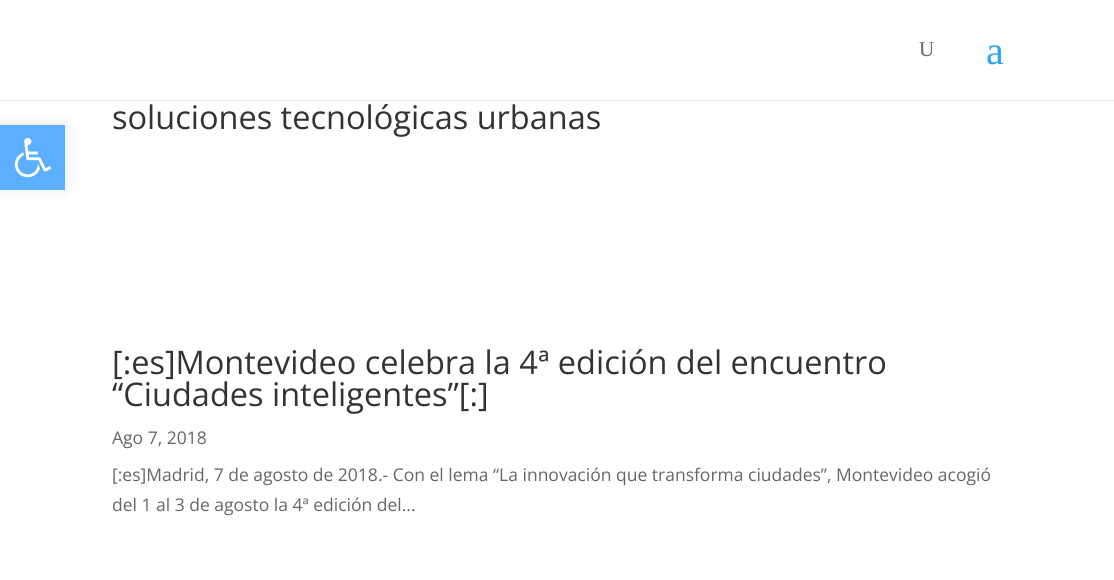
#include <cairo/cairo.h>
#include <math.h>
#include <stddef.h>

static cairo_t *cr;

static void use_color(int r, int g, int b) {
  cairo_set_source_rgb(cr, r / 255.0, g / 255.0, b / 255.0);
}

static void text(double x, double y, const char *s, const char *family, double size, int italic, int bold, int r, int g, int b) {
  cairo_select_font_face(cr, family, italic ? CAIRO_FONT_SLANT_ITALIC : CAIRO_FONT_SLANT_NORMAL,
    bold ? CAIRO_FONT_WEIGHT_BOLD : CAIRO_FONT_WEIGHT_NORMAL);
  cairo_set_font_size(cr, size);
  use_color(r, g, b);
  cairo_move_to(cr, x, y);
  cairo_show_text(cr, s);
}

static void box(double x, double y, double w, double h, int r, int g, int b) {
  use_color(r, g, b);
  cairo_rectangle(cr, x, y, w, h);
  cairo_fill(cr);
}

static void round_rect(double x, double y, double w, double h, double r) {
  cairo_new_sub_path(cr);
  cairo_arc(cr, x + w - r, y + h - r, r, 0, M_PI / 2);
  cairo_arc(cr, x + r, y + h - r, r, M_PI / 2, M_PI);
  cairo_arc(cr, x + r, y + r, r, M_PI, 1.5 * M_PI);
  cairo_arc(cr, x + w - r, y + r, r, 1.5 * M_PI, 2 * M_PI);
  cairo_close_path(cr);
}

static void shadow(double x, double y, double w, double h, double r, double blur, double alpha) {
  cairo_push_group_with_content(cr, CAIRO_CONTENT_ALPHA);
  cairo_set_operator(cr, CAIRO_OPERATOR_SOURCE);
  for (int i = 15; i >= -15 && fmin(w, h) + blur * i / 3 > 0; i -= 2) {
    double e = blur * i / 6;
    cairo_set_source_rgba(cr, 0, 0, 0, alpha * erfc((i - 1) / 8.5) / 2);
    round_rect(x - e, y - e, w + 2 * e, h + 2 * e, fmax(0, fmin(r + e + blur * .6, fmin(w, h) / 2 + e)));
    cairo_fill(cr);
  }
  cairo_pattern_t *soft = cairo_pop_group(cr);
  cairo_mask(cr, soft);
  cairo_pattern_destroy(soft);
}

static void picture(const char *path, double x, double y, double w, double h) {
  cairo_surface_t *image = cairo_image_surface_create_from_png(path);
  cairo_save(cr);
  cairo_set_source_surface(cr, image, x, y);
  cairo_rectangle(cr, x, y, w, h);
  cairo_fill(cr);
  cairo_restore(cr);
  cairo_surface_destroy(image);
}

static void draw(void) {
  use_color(255, 255, 255);
  cairo_paint(cr);
  use_color(0, 0, 0);
  shadow(0, 125, 65, 65, 0, 6, 0.1);
  box(0, 125, 65, 65, 92, 175, 255);
  picture("img_01.png", 14, 138, 38, 40);
  box(0, 100, 1114, 1, 230, 230, 230);
  text(919, 56, "U", "Liberation Serif", 21, 0, 0, 102, 102, 102);
  text(986, 64, "a", "Liberation Serif", 40, 0, 0, 46, 163, 242);
  text(112, 129, "soluciones tecnológicas urbanas", "Open Sans", 32.5, 0, 0, 51, 51, 51);
  text(112, 374, "[:es]Montevideo celebra la 4ª edición del encuentro", "Open Sans", 32.5, 0, 0, 51, 51, 51);
  text(112, 406, "“Ciudades inteligentes”[:]", "Open Sans", 32.5, 0, 0, 51, 51, 51);
  text(112, 444, "Ago 7, 2018", "Open Sans", 17.5, 0, 0, 102, 102, 102);
  text(112, 481, "[:es]Madrid, 7 de agosto de 2018.- Con el lema “La innovación que transforma ciudades”, Montevideo acogió", "Open Sans", 17.5, 0, 0, 102, 102, 102);
  text(112, 511, "del 1 al 3 de agosto la 4ª edición del...", "Open Sans", 17.5, 0, 0, 102, 102, 102);
}

int main(void) {
  cairo_surface_t *surface = cairo_image_surface_create(CAIRO_FORMAT_RGB24, 1114, 580);
  cr = cairo_create(surface);
  cairo_font_options_t *options = cairo_font_options_create();
  cairo_font_options_set_hint_metrics(options, CAIRO_HINT_METRICS_OFF);
  cairo_font_options_set_hint_style(options, CAIRO_HINT_STYLE_NONE);
  cairo_set_font_options(cr, options);
  cairo_set_miter_limit(cr, 4);
  draw();
  cairo_surface_write_to_png(surface, "out.png");
  cairo_font_options_destroy(options);
  cairo_destroy(cr);
  cairo_surface_destroy(surface);
  return 0;
}
